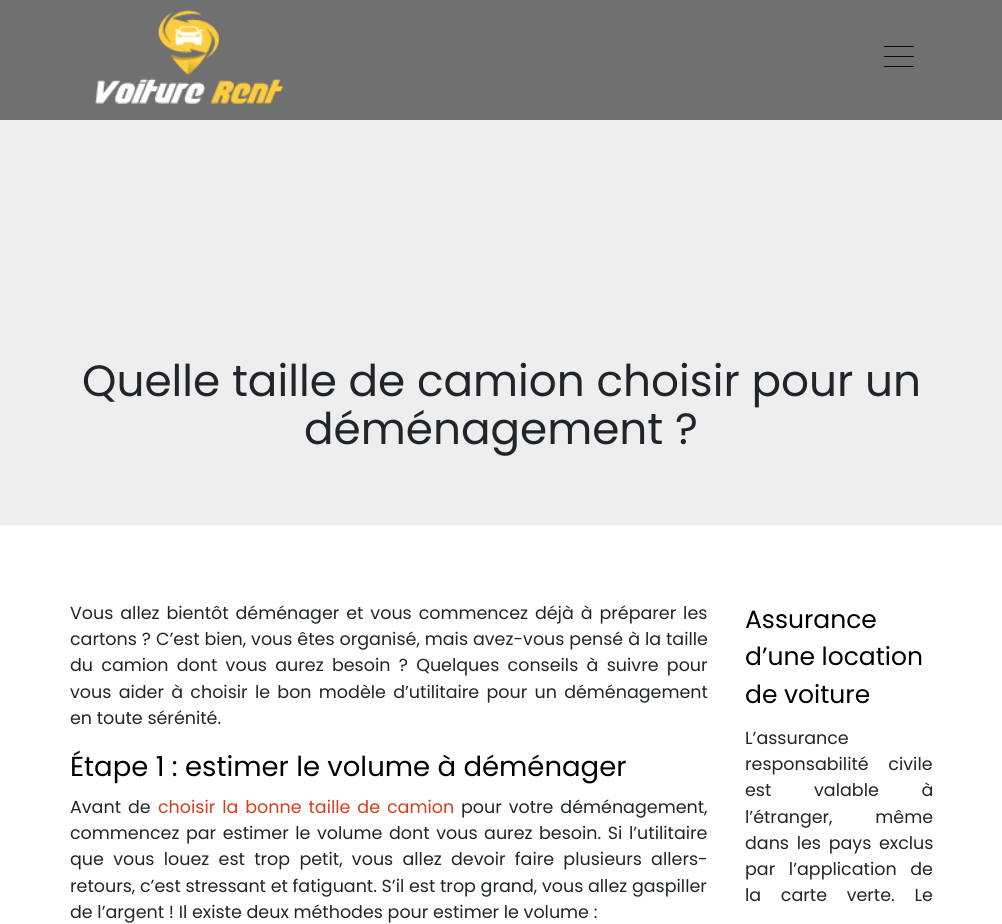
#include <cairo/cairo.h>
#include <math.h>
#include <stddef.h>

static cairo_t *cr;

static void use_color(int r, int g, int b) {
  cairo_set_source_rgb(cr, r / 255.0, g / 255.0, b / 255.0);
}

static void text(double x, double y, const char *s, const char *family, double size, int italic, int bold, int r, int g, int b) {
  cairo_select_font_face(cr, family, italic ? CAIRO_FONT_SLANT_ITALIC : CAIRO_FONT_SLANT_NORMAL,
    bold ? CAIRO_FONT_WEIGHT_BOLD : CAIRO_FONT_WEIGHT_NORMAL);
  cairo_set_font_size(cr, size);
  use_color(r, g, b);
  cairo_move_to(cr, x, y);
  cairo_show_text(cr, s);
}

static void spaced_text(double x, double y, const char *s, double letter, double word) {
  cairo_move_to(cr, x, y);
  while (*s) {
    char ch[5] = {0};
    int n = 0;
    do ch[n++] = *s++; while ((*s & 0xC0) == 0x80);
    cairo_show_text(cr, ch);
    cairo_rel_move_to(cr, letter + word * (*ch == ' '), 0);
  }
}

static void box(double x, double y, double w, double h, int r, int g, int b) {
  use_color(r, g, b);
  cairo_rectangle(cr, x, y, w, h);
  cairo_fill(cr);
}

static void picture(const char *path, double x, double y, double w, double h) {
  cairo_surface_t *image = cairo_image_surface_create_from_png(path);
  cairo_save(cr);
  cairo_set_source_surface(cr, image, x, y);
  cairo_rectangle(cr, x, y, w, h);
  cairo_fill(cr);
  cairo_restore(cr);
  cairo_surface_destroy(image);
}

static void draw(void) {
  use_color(255, 255, 255);
  cairo_paint(cr);
  box(0, 0, 1002, 120, 112, 112, 112);
  picture("img_01.png", 95, 10, 189, 94);
  box(884, 46, 30, 1, 12, 12, 13);
  box(884, 56, 30, 1, 12, 12, 13);
  box(884, 66, 30, 1, 12, 12, 13);
  box(0, 120, 1002, 405, 238, 238, 238);
  text(82, 396, "Quelle taille de camion choisir pour un", "Poppins", 43.75, 0, 0, 33, 37, 41);
  text(304, 444, "déménagement ?", "Poppins", 43.75, 0, 0, 33, 37, 41);
  cairo_set_font_size(cr, 17.5);
  spaced_text(70, 619, "Vous allez bientôt déménager et vous commencez déjà à préparer les", 0, 2.25);
  spaced_text(70, 645, "cartons ? C’est bien, vous êtes organisé, mais avez-vous pensé à la taille", 0, 0.25);
  spaced_text(70, 671, "du camion dont vous aurez besoin ? Quelques conseils à suivre pour", 0, 3.6);
  spaced_text(70, 698, "vous aider à choisir le bon modèle d’utilitaire pour un déménagement", 0, 2.6);
  text(70, 724, "en toute sérénité.", "Poppins", 17.5, 0, 0, 33, 37, 41);
  text(70, 776, "Étape 1 : estimer le volume à déménager", "Poppins", 27.5, 0, 0, 0, 0, 0);
  cairo_set_font_size(cr, 17.5);
  use_color(33, 37, 41);
  spaced_text(70, 813, "Avant de", 0, 2.25);
  use_color(215, 61, 24);
  spaced_text(158, 813, "choisir la bonne taille de camion", 0, 2.25);
  use_color(33, 37, 41);
  spaced_text(461, 813, "pour votre déménagement,", 0, 2.25);
  spaced_text(70, 839, "commencez par estimer le volume dont vous aurez besoin. Si l’utilitaire", 0, 1.9);
  spaced_text(70, 865, "que vous louez est trop petit, vous allez devoir faire plusieurs allers-", 0, 4.6);
  text(70, 892, "retours, c’est stressant et fatiguant. S’il est trop grand, vous allez gaspiller", "Poppins", 17.5, 0, 0, 33, 37, 41);
  text(70, 918, "de l’argent ! Il existe deux méthodes pour estimer le volume :", "Poppins", 17.5, 0, 0, 33, 37, 41);
  text(745, 628, "Assurance", "Poppins", 25, 0, 0, 0, 0, 0);
  text(745, 665, "d’une location", "Poppins", 25, 0, 0, 0, 0, 0);
  text(745, 703, "de voiture", "Poppins", 25, 0, 0, 0, 0, 0);
  text(745, 744, "L’assurance", "Poppins", 17.5, 0, 0, 33, 37, 41);
  spaced_text(745, 770, "responsabilité civile", 0, 15);
  spaced_text(745, 796, "est valable à", 0, 38);
  spaced_text(745, 823, "l’étranger, même", 0, 38);
  spaced_text(745, 849, "dans les pays exclus", 0, 3);
  spaced_text(745, 875, "par l’application de", 0, 9);
  spaced_text(745, 901, "la carte verte. Le", 0, 15);
}

int main(void) {
  cairo_surface_t *surface = cairo_image_surface_create(CAIRO_FORMAT_RGB24, 1002, 924);
  cr = cairo_create(surface);
  cairo_font_options_t *options = cairo_font_options_create();
  cairo_font_options_set_hint_metrics(options, CAIRO_HINT_METRICS_OFF);
  cairo_font_options_set_hint_style(options, CAIRO_HINT_STYLE_NONE);
  cairo_set_font_options(cr, options);
  cairo_set_miter_limit(cr, 4);
  draw();
  cairo_surface_write_to_png(surface, "out.png");
  cairo_font_options_destroy(options);
  cairo_destroy(cr);
  cairo_surface_destroy(surface);
  return 0;
}
